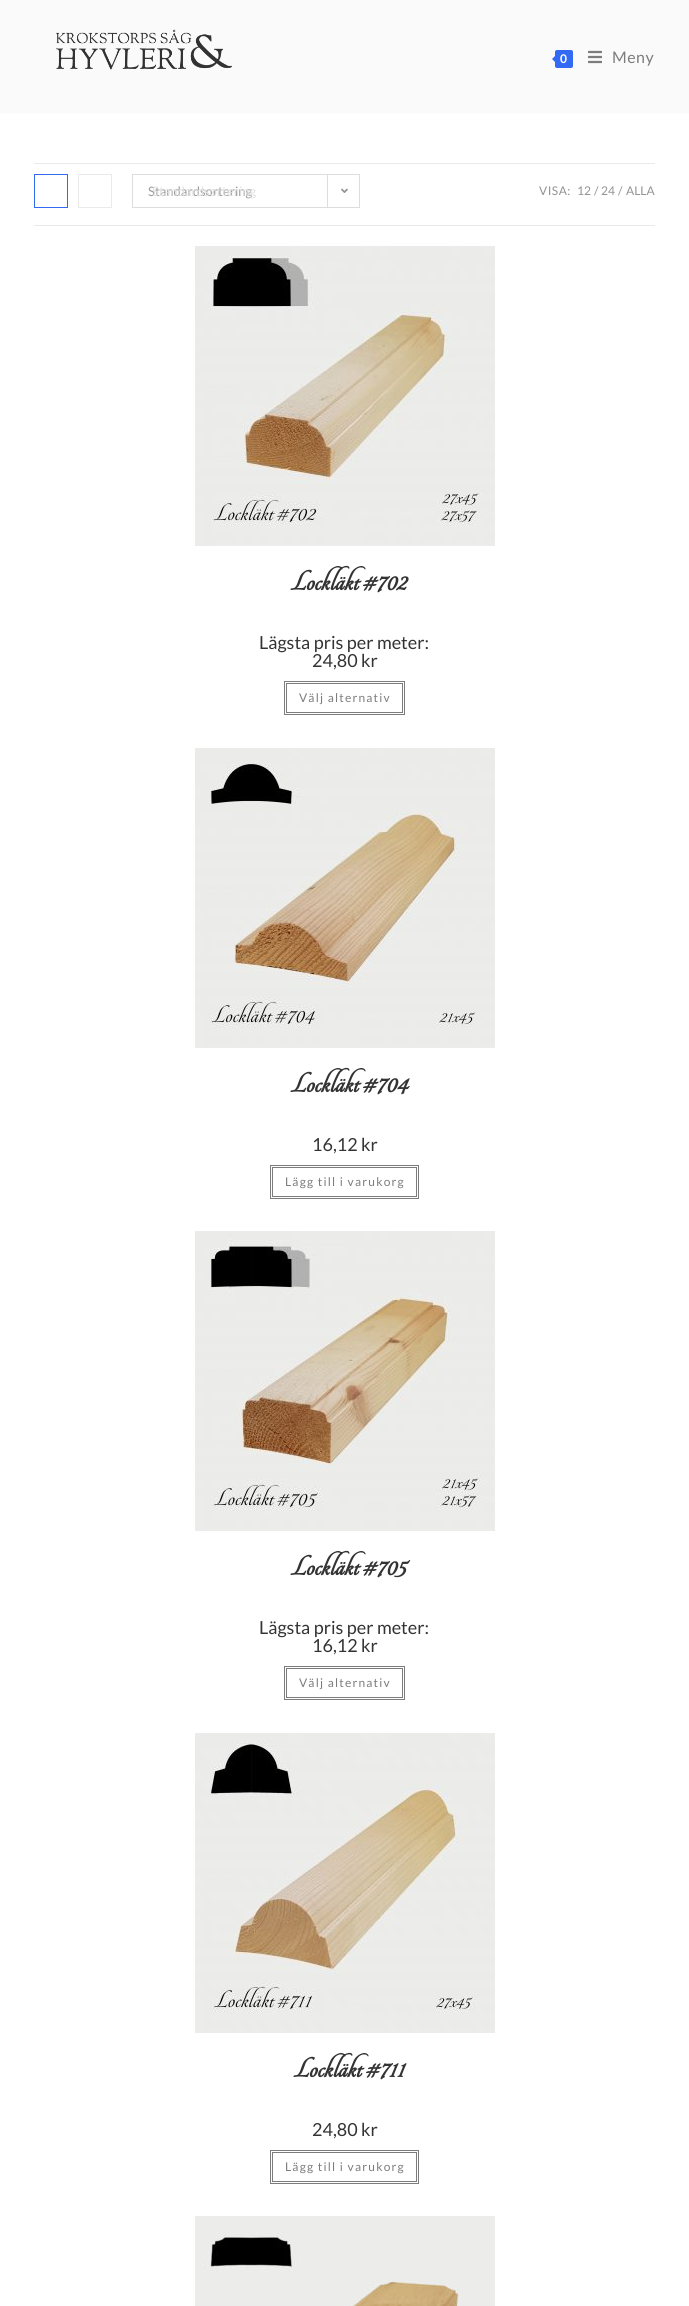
#include <cairo/cairo.h>
#include <math.h>
#include <stddef.h>

static cairo_t *cr;

static void use_color(int r, int g, int b) {
  cairo_set_source_rgb(cr, r / 255.0, g / 255.0, b / 255.0);
}

static void text(double x, double y, const char *s, const char *family, double size, int italic, int bold, int r, int g, int b) {
  cairo_select_font_face(cr, family, italic ? CAIRO_FONT_SLANT_ITALIC : CAIRO_FONT_SLANT_NORMAL,
    bold ? CAIRO_FONT_WEIGHT_BOLD : CAIRO_FONT_WEIGHT_NORMAL);
  cairo_set_font_size(cr, size);
  use_color(r, g, b);
  cairo_move_to(cr, x, y);
  cairo_show_text(cr, s);
}

static void spaced_text(double x, double y, const char *s, double letter, double word) {
  cairo_move_to(cr, x, y);
  while (*s) {
    char ch[5] = {0};
    int n = 0;
    do ch[n++] = *s++; while ((*s & 0xC0) == 0x80);
    cairo_show_text(cr, ch);
    cairo_rel_move_to(cr, letter + word * (*ch == ' '), 0);
  }
}

static void box(double x, double y, double w, double h, int r, int g, int b) {
  use_color(r, g, b);
  cairo_rectangle(cr, x, y, w, h);
  cairo_fill(cr);
}

static void round_rect(double x, double y, double w, double h, double r) {
  cairo_new_sub_path(cr);
  cairo_arc(cr, x + w - r, y + h - r, r, 0, M_PI / 2);
  cairo_arc(cr, x + r, y + h - r, r, M_PI / 2, M_PI);
  cairo_arc(cr, x + r, y + r, r, M_PI, 1.5 * M_PI);
  cairo_arc(cr, x + w - r, y + r, r, 1.5 * M_PI, 2 * M_PI);
  cairo_close_path(cr);
}

static void picture(const char *path, double x, double y, double w, double h) {
  cairo_surface_t *image = cairo_image_surface_create_from_png(path);
  cairo_save(cr);
  cairo_set_source_surface(cr, image, x, y);
  cairo_rectangle(cr, x, y, w, h);
  cairo_fill(cr);
  cairo_restore(cr);
  cairo_surface_destroy(image);
}

static void draw(void) {
  use_color(255, 255, 255);
  cairo_paint(cr);
  box(0, 0, 689, 113, 250, 250, 250);
  picture("img_01.png", 55, 29, 177, 41);
  use_color(51, 106, 244);
  round_rect(555, 50, 18, 18, 2);
  cairo_fill(cr);
  cairo_new_path(cr);
  cairo_move_to(cr, 557, 54);
  cairo_line_to(cr, 557, 64);
  cairo_line_to(cr, 552, 59);
  cairo_close_path(cr);
  cairo_fill(cr);
  picture("img_02.png", 588, 50, 14, 14);
  box(34, 163, 621, 1, 234, 234, 234);
  box(34, 225, 621, 1, 234, 234, 234);
  cairo_rectangle(cr, 34.5, 174.5, 33, 33);
  use_color(51, 106, 244);
  cairo_set_line_width(cr, 1);
  cairo_stroke(cr);
  cairo_rectangle(cr, 78.5, 174.5, 33, 33);
  use_color(234, 234, 234);
  cairo_stroke(cr);
  cairo_rectangle(cr, 132.5, 174.5, 227, 33);
  use_color(221, 221, 221);
  cairo_stroke(cr);
  box(327, 175, 1, 32, 221, 221, 221);
  picture("img_03.png", 341, 188, 7, 5);
  picture("img_04.png", 195, 246, 300, 300);
  cairo_rectangle(cr, 284.5, 681.5, 120, 33);
  use_color(124, 124, 124);
  cairo_stroke(cr);
  cairo_rectangle(cr, 286.5, 683.5, 116, 29);
  cairo_stroke(cr);
  picture("img_05.png", 195, 748, 300, 300);
  cairo_rectangle(cr, 270.5, 1165.5, 148, 33);
  cairo_stroke(cr);
  cairo_rectangle(cr, 272.5, 1167.5, 144, 29);
  cairo_stroke(cr);
  picture("img_06.png", 195, 1231, 300, 300);
  cairo_rectangle(cr, 284.5, 1666.5, 120, 33);
  cairo_stroke(cr);
  cairo_rectangle(cr, 286.5, 1668.5, 116, 29);
  cairo_stroke(cr);
  picture("img_07.png", 195, 1733, 300, 300);
  cairo_rectangle(cr, 270.5, 2150.5, 148, 33);
  cairo_stroke(cr);
  cairo_rectangle(cr, 272.5, 2152.5, 144, 29);
  cairo_stroke(cr);
  picture("img_08.png", 195, 2216, 300, 90);
  cairo_select_font_face(cr, "Lato", CAIRO_FONT_SLANT_NORMAL, CAIRO_FONT_WEIGHT_BOLD);
  cairo_set_font_size(cr, 12);
  use_color(255, 255, 255);
  spaced_text(560, 63, "0", 0.5, 0);
  cairo_select_font_face(cr, "Lato", CAIRO_FONT_SLANT_NORMAL, CAIRO_FONT_WEIGHT_NORMAL);
  cairo_set_font_size(cr, 16);
  use_color(124, 124, 124);
  spaced_text(612, 63, "Meny", 0.5, 0);
  text(148, 196, "Standardsortering", "Lato", 13, 0, 0, 153, 153, 153);
  text(152, 196, "Standardsortering", "Lato", 13, 0, 0, 224, 224, 224);
  cairo_set_font_size(cr, 12);
  use_color(146, 146, 146);
  spaced_text(539, 195, "VISA:", 0.5, 0);
  text(577, 195, "12", "Lato", 12, 0, 0, 146, 146, 146);
  text(594, 195, "/", "Lato", 12, 0, 0, 146, 146, 146);
  text(601, 195, "24", "Lato", 12, 0, 0, 146, 146, 146);
  text(618, 195, "/", "Lato", 12, 0, 0, 146, 146, 146);
  text(626, 195, "ALLA", "Lato", 12, 0, 0, 146, 146, 146);
  text(281, 590, "Lockläkt #702", "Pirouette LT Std", 35, 0, 1, 51, 51, 51);
  text(259, 649, "Lägsta pris per meter:", "Lato", 18, 0, 0, 51, 51, 51);
  text(312, 667, "24,80 kr", "Lato", 18, 0, 0, 51, 51, 51);
  cairo_set_font_size(cr, 12);
  use_color(124, 124, 124);
  spaced_text(299, 702, "Välj alternativ", 1.2, 0);
  text(281, 1092, "Lockläkt #704", "Pirouette LT Std", 35, 0, 1, 51, 51, 51);
  text(312, 1151, "16,12 kr", "Lato", 18, 0, 0, 51, 51, 51);
  cairo_set_font_size(cr, 12);
  use_color(124, 124, 124);
  spaced_text(285, 1186, "Lägg till i varukorg", 1.2, 0);
  text(281, 1575, "Lockläkt #705", "Pirouette LT Std", 35, 0, 1, 51, 51, 51);
  text(259, 1634, "Lägsta pris per meter:", "Lato", 18, 0, 0, 51, 51, 51);
  text(312, 1652, "16,12 kr", "Lato", 18, 0, 0, 51, 51, 51);
  cairo_set_font_size(cr, 12);
  use_color(124, 124, 124);
  spaced_text(299, 1687, "Välj alternativ", 1.2, 0);
  text(284, 2077, "Lockläkt #711", "Pirouette LT Std", 35, 0, 1, 51, 51, 51);
  text(312, 2136, "24,80 kr", "Lato", 18, 0, 0, 51, 51, 51);
  cairo_set_font_size(cr, 12);
  use_color(124, 124, 124);
  spaced_text(285, 2171, "Lägg till i varukorg", 1.2, 0);
}

int main(void) {
  cairo_surface_t *surface = cairo_image_surface_create(CAIRO_FORMAT_RGB24, 689, 2306);
  cr = cairo_create(surface);
  cairo_font_options_t *options = cairo_font_options_create();
  cairo_font_options_set_hint_metrics(options, CAIRO_HINT_METRICS_OFF);
  cairo_font_options_set_hint_style(options, CAIRO_HINT_STYLE_NONE);
  cairo_set_font_options(cr, options);
  cairo_set_miter_limit(cr, 4);
  draw();
  cairo_surface_write_to_png(surface, "out.png");
  cairo_font_options_destroy(options);
  cairo_destroy(cr);
  cairo_surface_destroy(surface);
  return 0;
}
